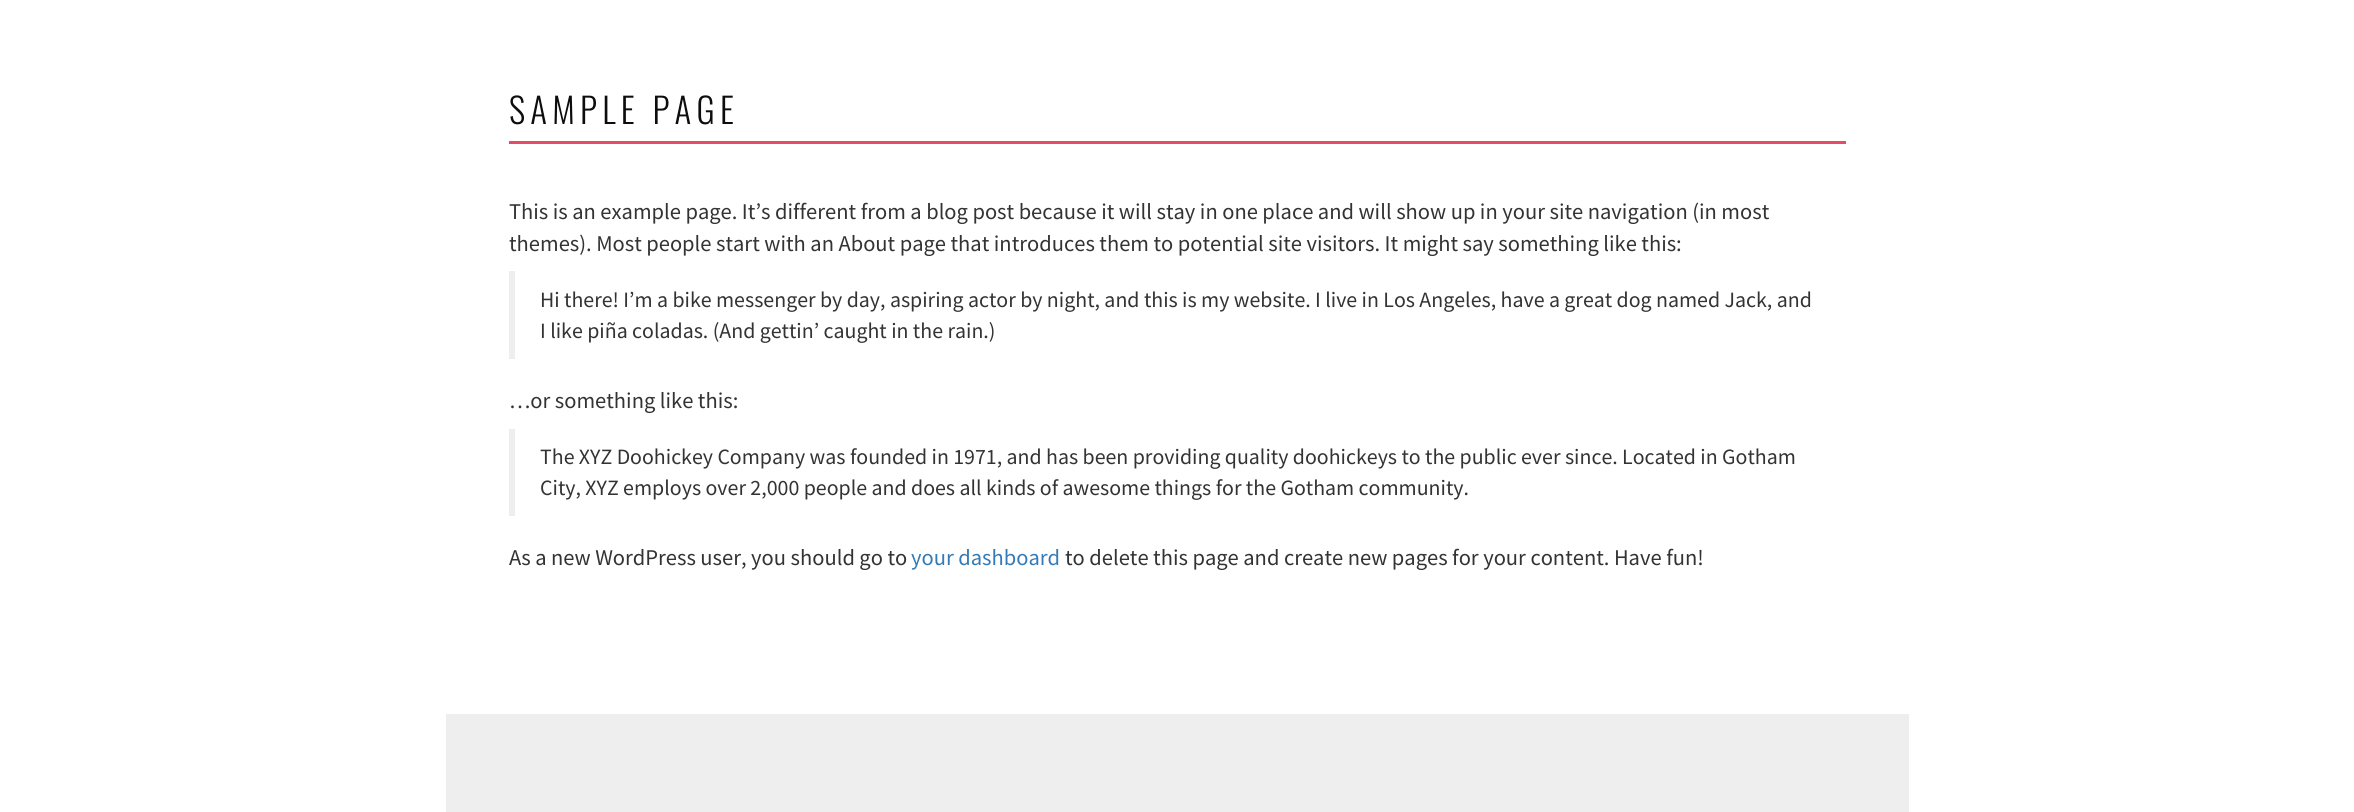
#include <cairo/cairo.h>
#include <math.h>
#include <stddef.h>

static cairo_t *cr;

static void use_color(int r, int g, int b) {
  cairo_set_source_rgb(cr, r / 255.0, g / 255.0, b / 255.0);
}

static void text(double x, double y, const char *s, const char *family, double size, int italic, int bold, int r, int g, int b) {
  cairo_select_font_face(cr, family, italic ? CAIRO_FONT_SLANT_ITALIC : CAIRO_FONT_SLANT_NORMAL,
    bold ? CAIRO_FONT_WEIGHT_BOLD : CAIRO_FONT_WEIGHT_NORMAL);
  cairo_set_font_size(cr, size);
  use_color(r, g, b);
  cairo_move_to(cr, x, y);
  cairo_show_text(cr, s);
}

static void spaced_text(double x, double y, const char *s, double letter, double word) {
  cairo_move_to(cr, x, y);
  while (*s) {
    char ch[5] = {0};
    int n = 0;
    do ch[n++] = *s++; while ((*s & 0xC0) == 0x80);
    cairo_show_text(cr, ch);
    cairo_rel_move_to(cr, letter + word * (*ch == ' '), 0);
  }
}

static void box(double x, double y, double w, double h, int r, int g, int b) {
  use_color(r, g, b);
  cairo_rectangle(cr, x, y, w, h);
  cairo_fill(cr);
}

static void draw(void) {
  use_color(255, 255, 255);
  cairo_paint(cr);
  box(509, 141, 1337, 3, 230, 76, 102);
  box(509, 271, 6, 88, 238, 238, 238);
  box(509, 429, 6, 87, 238, 238, 238);
  box(446, 714, 1463, 98, 238, 238, 238);
  cairo_select_font_face(cr, "Oswald Light", CAIRO_FONT_SLANT_NORMAL, CAIRO_FONT_WEIGHT_NORMAL);
  cairo_set_font_size(cr, 35);
  use_color(13, 13, 13);
  spaced_text(509, 124, "SAMPLE PAGE", 5.25, 0);
  text(509, 219, "This is an example page. It’s different from a blog post because it will stay in one place and will show up in your site navigation (in most", "Source Sans Pro", 22.5, 0, 0, 51, 51, 51);
  text(509, 251, "themes). Most people start with an About page that introduces them to potential site visitors. It might say something like this:", "Source Sans Pro", 22.5, 0, 0, 51, 51, 51);
  text(540, 307, "Hi there! I’m a bike messenger by day, aspiring actor by night, and this is my website. I live in Los Angeles, have a great dog named Jack, and", "Source Sans Pro", 21.88, 0, 0, 51, 51, 51);
  text(540, 338, "I like piña coladas. (And gettin’ caught in the rain.)", "Source Sans Pro", 21.88, 0, 0, 51, 51, 51);
  text(509, 408, "…or something like this:", "Source Sans Pro", 22.5, 0, 0, 51, 51, 51);
  text(540, 464, "The XYZ Doohickey Company was founded in 1971, and has been providing quality doohickeys to the public ever since. Located in Gotham", "Source Sans Pro", 21.88, 0, 0, 51, 51, 51);
  text(540, 495, "City, XYZ employs over 2,000 people and does all kinds of awesome things for the Gotham community.", "Source Sans Pro", 21.88, 0, 0, 51, 51, 51);
  text(509, 565, "As a new WordPress user, you should go to", "Source Sans Pro", 22.5, 0, 0, 51, 51, 51);
  text(911, 565, "your dashboard", "Source Sans Pro", 22.5, 0, 0, 51, 122, 183);
  text(1065, 565, "to delete this page and create new pages for your content. Have fun!", "Source Sans Pro", 22.5, 0, 0, 51, 51, 51);
}

int main(void) {
  cairo_surface_t *surface = cairo_image_surface_create(CAIRO_FORMAT_RGB24, 2354, 812);
  cr = cairo_create(surface);
  cairo_font_options_t *options = cairo_font_options_create();
  cairo_font_options_set_hint_metrics(options, CAIRO_HINT_METRICS_OFF);
  cairo_font_options_set_hint_style(options, CAIRO_HINT_STYLE_NONE);
  cairo_set_font_options(cr, options);
  cairo_set_miter_limit(cr, 4);
  draw();
  cairo_surface_write_to_png(surface, "out.png");
  cairo_font_options_destroy(options);
  cairo_destroy(cr);
  cairo_surface_destroy(surface);
  return 0;
}
